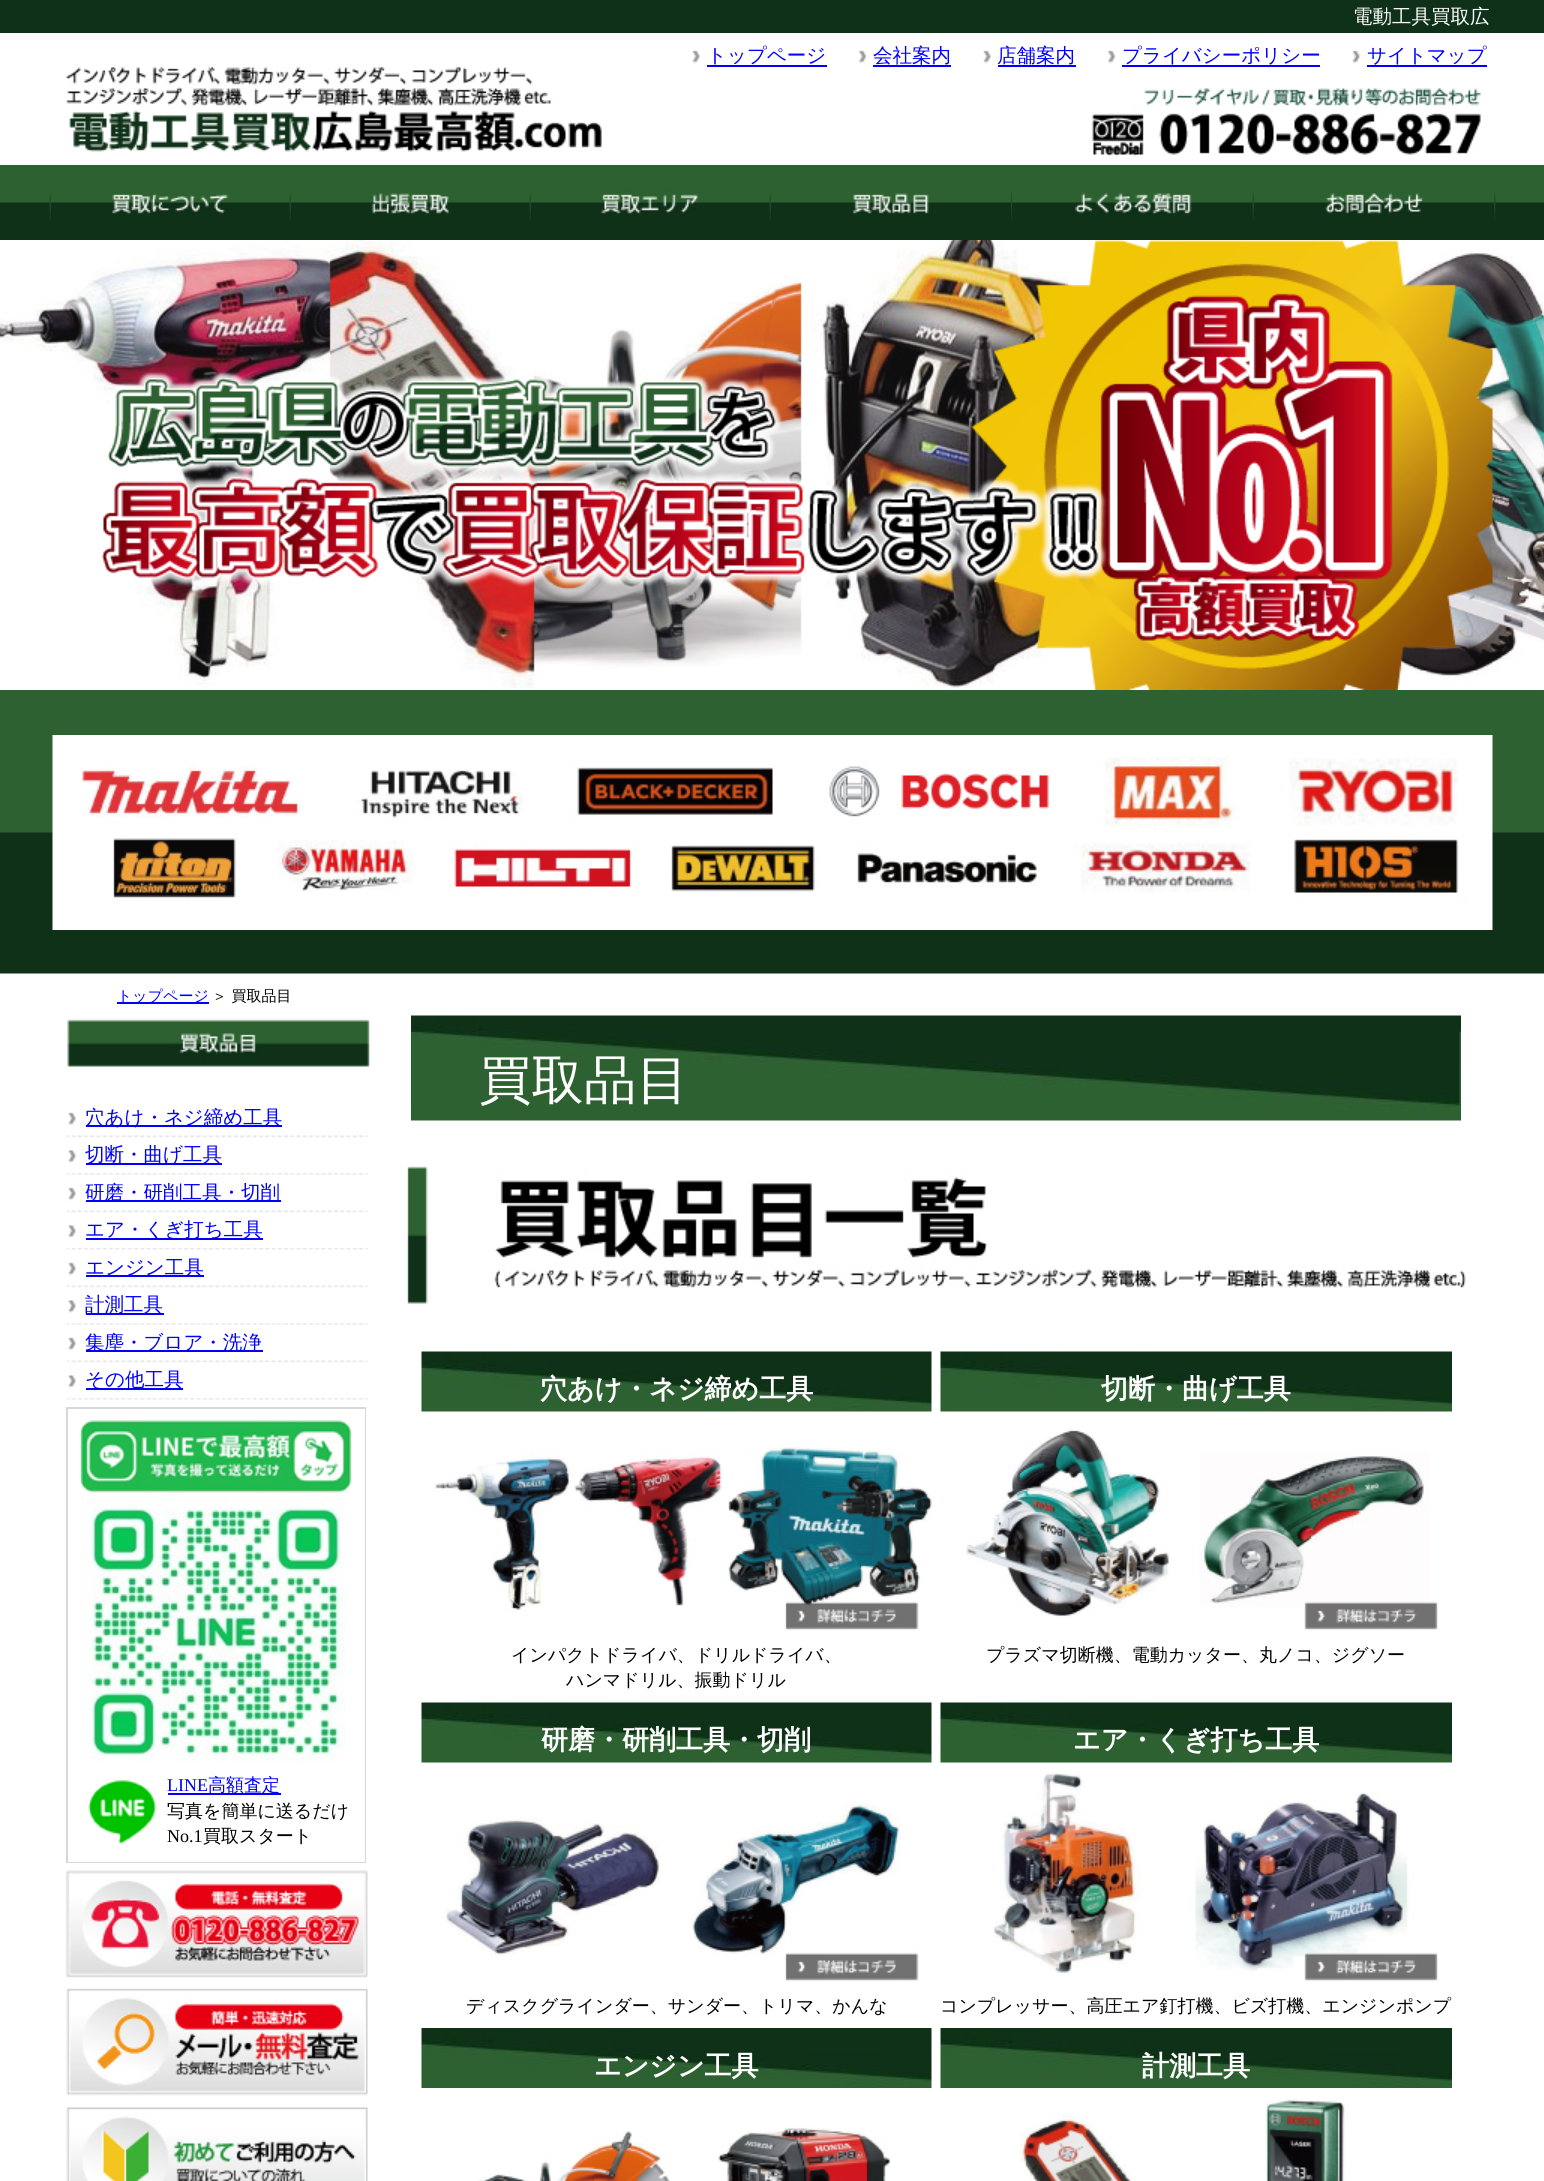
#include <cairo/cairo.h>
#include <math.h>
#include <stddef.h>

static cairo_t *cr;

static void use_color(int r, int g, int b) {
  cairo_set_source_rgb(cr, r / 255.0, g / 255.0, b / 255.0);
}

static void text(double x, double y, const char *s, const char *family, double size, int italic, int bold, int r, int g, int b) {
  cairo_select_font_face(cr, family, italic ? CAIRO_FONT_SLANT_ITALIC : CAIRO_FONT_SLANT_NORMAL,
    bold ? CAIRO_FONT_WEIGHT_BOLD : CAIRO_FONT_WEIGHT_NORMAL);
  cairo_set_font_size(cr, size);
  use_color(r, g, b);
  cairo_move_to(cr, x, y);
  cairo_show_text(cr, s);
}

static void box(double x, double y, double w, double h, int r, int g, int b) {
  use_color(r, g, b);
  cairo_rectangle(cr, x, y, w, h);
  cairo_fill(cr);
}

static void picture(const char *path, double x, double y, double w, double h) {
  cairo_surface_t *image = cairo_image_surface_create_from_png(path);
  cairo_save(cr);
  cairo_set_source_surface(cr, image, x, y);
  cairo_rectangle(cr, x, y, w, h);
  cairo_fill(cr);
  cairo_restore(cr);
  cairo_surface_destroy(image);
}

static void draw(void) {
  use_color(255, 255, 255);
  cairo_paint(cr);
  box(0, 0, 1544, 33, 15, 49, 25);
  picture("img_01.png", 692, 50, 9, 14);
  box(707, 65, 120, 2, 0, 0, 255);
  picture("img_02.png", 859, 50, 8, 14);
  box(873, 65, 78, 2, 0, 0, 255);
  picture("img_01.png", 983, 50, 9, 14);
  box(998, 65, 78, 2, 0, 0, 255);
  picture("img_02.png", 1108, 50, 8, 14);
  box(1122, 65, 198, 2, 0, 0, 255);
  picture("img_03.png", 1352, 50, 9, 14);
  box(1367, 65, 120, 2, 0, 0, 255);
  picture("img_04.png", 1091, 88, 390, 69);
  picture("img_05.png", 65, 66, 537, 86);
  picture("img_06.png", 0, 165, 1544, 75);
  picture("img_07.png", 49, 191, 2, 30);
  picture("img_08.png", 111, 192, 118, 22);
  picture("img_07.png", 289, 191, 2, 30);
  picture("img_09.png", 371, 191, 78, 23);
  picture("img_07.png", 529, 191, 2, 30);
  picture("img_10.png", 601, 189, 97, 25);
  picture("img_07.png", 769, 191, 2, 30);
  picture("img_11.png", 852, 193, 77, 21);
  picture("img_12.png", 1011, 191, 2, 30);
  picture("img_07.png", 1252, 191, 2, 30);
  picture("img_13.png", 1325, 192, 98, 22);
  picture("img_12.png", 1494, 191, 2, 30);
  picture("img_14.png", 1012, 193, 180, 21);
  picture("img_15.png", 0, 240, 1544, 450);
  picture("img_16.png", 101, 240, 1392, 450);
  picture("img_17.png", 0, 690, 1544, 284);
  picture("img_18.png", 52, 735, 1441, 195);
  box(117, 1002, 92, 2, 0, 0, 255);
  picture("img_19.png", 67, 1019, 303, 48);
  picture("img_01.png", 68, 1112, 9, 14);
  box(86, 1125, 196, 2, 0, 0, 255);
  picture("img_20.png", 66, 1135, 302, 3);
  picture("img_21.png", 68, 1150, 9, 13);
  box(86, 1163, 136, 2, 0, 0, 255);
  picture("img_22.png", 66, 1173, 302, 2);
  picture("img_01.png", 68, 1187, 9, 14);
  box(86, 1200, 195, 2, 0, 0, 255);
  picture("img_20.png", 66, 1210, 302, 3);
  picture("img_21.png", 68, 1225, 9, 13);
  box(86, 1238, 177, 2, 0, 0, 255);
  picture("img_22.png", 66, 1248, 302, 2);
  picture("img_01.png", 68, 1262, 9, 14);
  box(86, 1275, 118, 2, 0, 0, 255);
  picture("img_20.png", 66, 1285, 302, 3);
  picture("img_21.png", 68, 1300, 9, 13);
  box(86, 1313, 78, 2, 0, 0, 255);
  picture("img_22.png", 66, 1323, 302, 2);
  picture("img_01.png", 68, 1337, 9, 14);
  box(86, 1350, 177, 2, 0, 0, 255);
  picture("img_20.png", 66, 1360, 302, 3);
  picture("img_21.png", 68, 1375, 9, 13);
  box(86, 1388, 97, 2, 0, 0, 255);
  picture("img_22.png", 66, 1398, 302, 2);
  box(66, 1407, 300, 456, 215, 215, 215);
  box(68, 1409, 297, 453, 255, 255, 255);
  picture("img_23.png", 80, 1420, 272, 73);
  picture("img_24.png", 81, 1497, 265, 264);
  picture("img_25.png", 88, 1780, 69, 64);
  box(168, 1793, 113, 2, 0, 0, 255);
  picture("img_26.png", 66, 1870, 302, 108);
  picture("img_27.png", 66, 1988, 302, 108);
  picture("img_28.png", 66, 2107, 302, 74);
  picture("img_29.png", 411, 1015, 1050, 106);
  picture("img_30.png", 407, 1166, 1059, 138);
  picture("img_31.png", 421, 1351, 511, 61);
  picture("img_32.png", 434, 1447, 498, 183);
  picture("img_33.png", 940, 1351, 512, 61);
  picture("img_34.png", 966, 1430, 472, 200);
  picture("img_31.png", 421, 1702, 511, 61);
  picture("img_35.png", 445, 1804, 474, 177);
  picture("img_33.png", 940, 1702, 512, 61);
  picture("img_36.png", 994, 1771, 444, 210);
  picture("img_37.png", 421, 2028, 511, 60);
  picture("img_38.png", 478, 2127, 413, 54);
  picture("img_39.png", 940, 2028, 512, 60);
  picture("img_40.png", 1020, 2099, 325, 82);
  text(1353, 23, "電動工具買取広", "WenQuanYi Zen Hei Medium", 19.5, 0, 0, 255, 255, 255);
  text(707, 62, "トップページ", "WenQuanYi Zen Hei Medium", 19.5, 0, 0, 0, 0, 255);
  text(873, 62, "会社案内", "WenQuanYi Zen Hei Medium", 19.5, 0, 0, 0, 0, 255);
  text(997, 62, "店舗案内", "WenQuanYi Zen Hei Medium", 19.5, 0, 0, 0, 0, 255);
  text(1122, 62, "プライバシーポリシー", "WenQuanYi Zen Hei Medium", 19.5, 0, 0, 0, 0, 255);
  text(1367, 62, "サイトマップ", "WenQuanYi Zen Hei Medium", 19.5, 0, 0, 0, 0, 255);
  text(117, 1001, "トップページ", "WenQuanYi Zen Hei Medium", 15, 0, 0, 0, 0, 255);
  text(212, 1001, "＞ 買取品目", "WenQuanYi Zen Hei Medium", 15, 0, 0, 0, 0, 0);
  text(85, 1124, "穴あけ・ネジ締め工具", "WenQuanYi Zen Hei Medium", 19.5, 0, 0, 0, 0, 255);
  text(85, 1161, "切断・曲げ工具", "WenQuanYi Zen Hei Medium", 19.5, 0, 0, 0, 0, 255);
  text(85, 1199, "研磨・研削工具・切削", "WenQuanYi Zen Hei Medium", 19.5, 0, 0, 0, 0, 255);
  text(85, 1236, "エア・くぎ打ち工具", "WenQuanYi Zen Hei Medium", 19.5, 0, 0, 0, 0, 255);
  text(85, 1274, "エンジン工具", "WenQuanYi Zen Hei Medium", 19.5, 0, 0, 0, 0, 255);
  text(85, 1311, "計測工具", "WenQuanYi Zen Hei Medium", 19.5, 0, 0, 0, 0, 255);
  text(85, 1349, "集塵・ブロア・洗浄", "WenQuanYi Zen Hei Medium", 19.5, 0, 0, 0, 0, 255);
  text(85, 1386, "その他工具", "WenQuanYi Zen Hei Medium", 19.5, 0, 0, 0, 0, 255);
  text(167, 1791, "LINE", "Liberation Serif", 18, 0, 0, 0, 0, 255);
  text(208, 1791, "高額査定", "WenQuanYi Zen Hei Medium", 18, 0, 0, 0, 0, 255);
  text(167, 1817, "写真を簡単に送るだけ", "WenQuanYi Zen Hei Medium", 18, 0, 0, 0, 0, 0);
  text(167, 1842, "No.1", "Liberation Serif", 18, 0, 0, 0, 0, 0);
  text(203, 1842, "買取スタート", "WenQuanYi Zen Hei Medium", 18, 0, 0, 0, 0, 0);
  text(479, 1098, "買取品目", "WenQuanYi Zen Hei Medium", 52.5, 0, 0, 255, 255, 255);
  text(540, 1398, "穴あけ・ネジ締め工具", "WenQuanYi Zen Hei", 27, 0, 1, 255, 255, 255);
  text(511, 1661, "インパクトドライバ、ドリルドライバ、", "WenQuanYi Zen Hei Medium", 18, 0, 0, 0, 0, 0);
  text(566, 1686, "ハンマドリル、振動ドリル", "WenQuanYi Zen Hei Medium", 18, 0, 0, 0, 0, 0);
  text(1101, 1398, "切断・曲げ工具", "WenQuanYi Zen Hei", 27, 0, 1, 255, 255, 255);
  text(986, 1661, "プラズマ切断機、電動カッター、丸ノコ、ジグソー", "WenQuanYi Zen Hei Medium", 18, 0, 0, 0, 0, 0);
  text(541, 1749, "研磨・研削工具・切削", "WenQuanYi Zen Hei", 27, 0, 1, 255, 255, 255);
  text(466, 2012, "ディスクグラインダー、サンダー、トリマ、かんな", "WenQuanYi Zen Hei Medium", 18, 0, 0, 0, 0, 0);
  text(1073, 1749, "エア・くぎ打ち工具", "WenQuanYi Zen Hei", 27, 0, 1, 255, 255, 255);
  text(940, 2012, "コンプレッサー、高圧エア釘打機、ビズ打機、エンジンポンプ", "WenQuanYi Zen Hei Medium", 18, 0, 0, 0, 0, 0);
  text(594, 2075, "エンジン工具", "WenQuanYi Zen Hei", 27, 0, 1, 255, 255, 255);
  text(1142, 2075, "計測工具", "WenQuanYi Zen Hei", 27, 0, 1, 255, 255, 255);
}

int main(void) {
  cairo_surface_t *surface = cairo_image_surface_create(CAIRO_FORMAT_RGB24, 1544, 2181);
  cr = cairo_create(surface);
  cairo_font_options_t *options = cairo_font_options_create();
  cairo_font_options_set_hint_metrics(options, CAIRO_HINT_METRICS_OFF);
  cairo_font_options_set_hint_style(options, CAIRO_HINT_STYLE_NONE);
  cairo_set_font_options(cr, options);
  cairo_set_miter_limit(cr, 4);
  draw();
  cairo_surface_write_to_png(surface, "out.png");
  cairo_font_options_destroy(options);
  cairo_destroy(cr);
  cairo_surface_destroy(surface);
  return 0;
}
